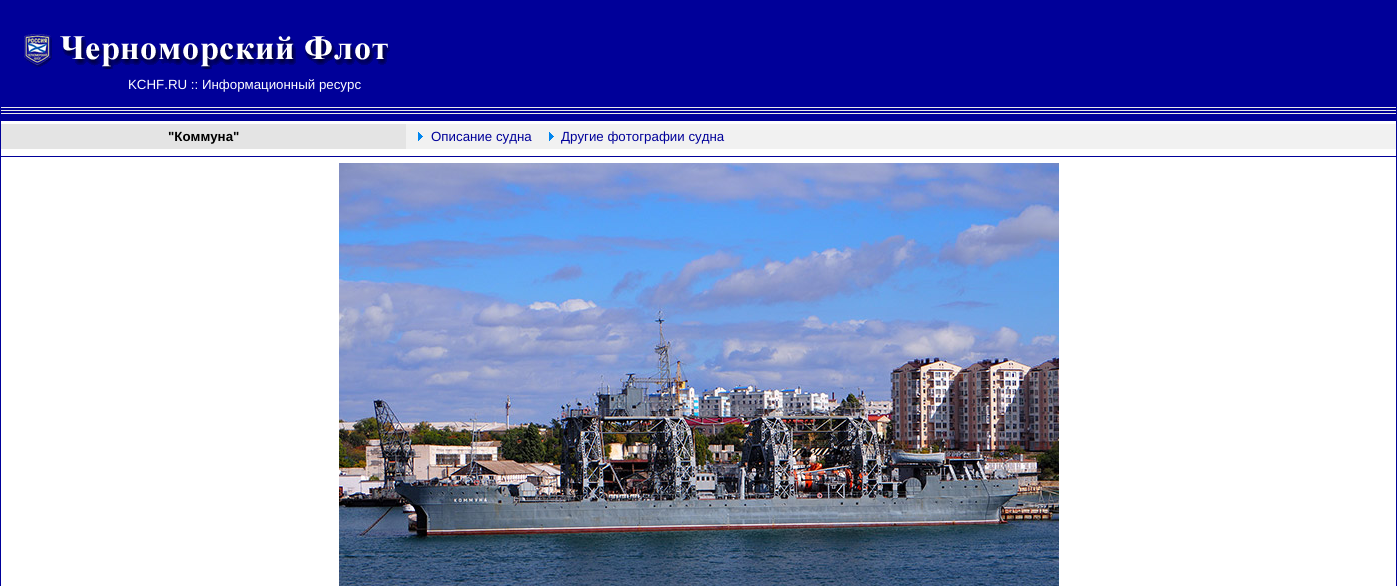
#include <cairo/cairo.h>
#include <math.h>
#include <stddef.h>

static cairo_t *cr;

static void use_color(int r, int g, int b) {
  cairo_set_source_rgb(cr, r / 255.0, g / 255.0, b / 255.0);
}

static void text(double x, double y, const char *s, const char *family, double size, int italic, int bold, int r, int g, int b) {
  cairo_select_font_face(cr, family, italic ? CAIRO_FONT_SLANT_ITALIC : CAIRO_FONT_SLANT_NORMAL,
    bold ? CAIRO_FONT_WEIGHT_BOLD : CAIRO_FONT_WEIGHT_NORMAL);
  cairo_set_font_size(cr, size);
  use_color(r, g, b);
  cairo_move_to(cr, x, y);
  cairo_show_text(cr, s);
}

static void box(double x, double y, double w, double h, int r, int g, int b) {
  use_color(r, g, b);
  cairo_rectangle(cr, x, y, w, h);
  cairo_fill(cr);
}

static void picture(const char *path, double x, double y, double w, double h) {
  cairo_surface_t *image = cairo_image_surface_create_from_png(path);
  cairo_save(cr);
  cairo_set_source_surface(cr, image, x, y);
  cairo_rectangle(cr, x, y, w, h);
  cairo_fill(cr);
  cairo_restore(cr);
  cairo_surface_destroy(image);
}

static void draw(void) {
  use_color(0, 0, 153);
  cairo_paint(cr);
  box(1, 121, 1395, 465, 255, 255, 255);
  picture("img_01.png", 24, 34, 366, 35);
  picture("img_02.png", 1, 107, 1395, 7);
  box(1, 124, 405, 25, 228, 228, 228);
  box(406, 124, 990, 25, 241, 241, 241);
  picture("img_03.png", 418, 132, 5, 9);
  picture("img_03.png", 549, 132, 5, 9);
  box(1, 156, 1395, 1, 0, 0, 153);
  picture("img_04.png", 339, 163, 720, 423);
  text(128, 89, "KCHF.RU :: Информационный ресурс", "Liberation Sans", 13.3, 0, 0, 255, 255, 255);
  text(168, 141, "\"Коммуна\"", "Liberation Sans", 13.3, 0, 1, 0, 0, 0);
  text(431, 141, "Описание судна", "Liberation Sans", 13.3, 0, 0, 0, 0, 153);
  text(561, 141, "Другие фотографии судна", "Liberation Sans", 13.3, 0, 0, 0, 0, 153);
}

int main(void) {
  cairo_surface_t *surface = cairo_image_surface_create(CAIRO_FORMAT_RGB24, 1397, 586);
  cr = cairo_create(surface);
  cairo_font_options_t *options = cairo_font_options_create();
  cairo_font_options_set_hint_metrics(options, CAIRO_HINT_METRICS_OFF);
  cairo_font_options_set_hint_style(options, CAIRO_HINT_STYLE_NONE);
  cairo_set_font_options(cr, options);
  cairo_set_miter_limit(cr, 4);
  draw();
  cairo_surface_write_to_png(surface, "out.png");
  cairo_font_options_destroy(options);
  cairo_destroy(cr);
  cairo_surface_destroy(surface);
  return 0;
}
